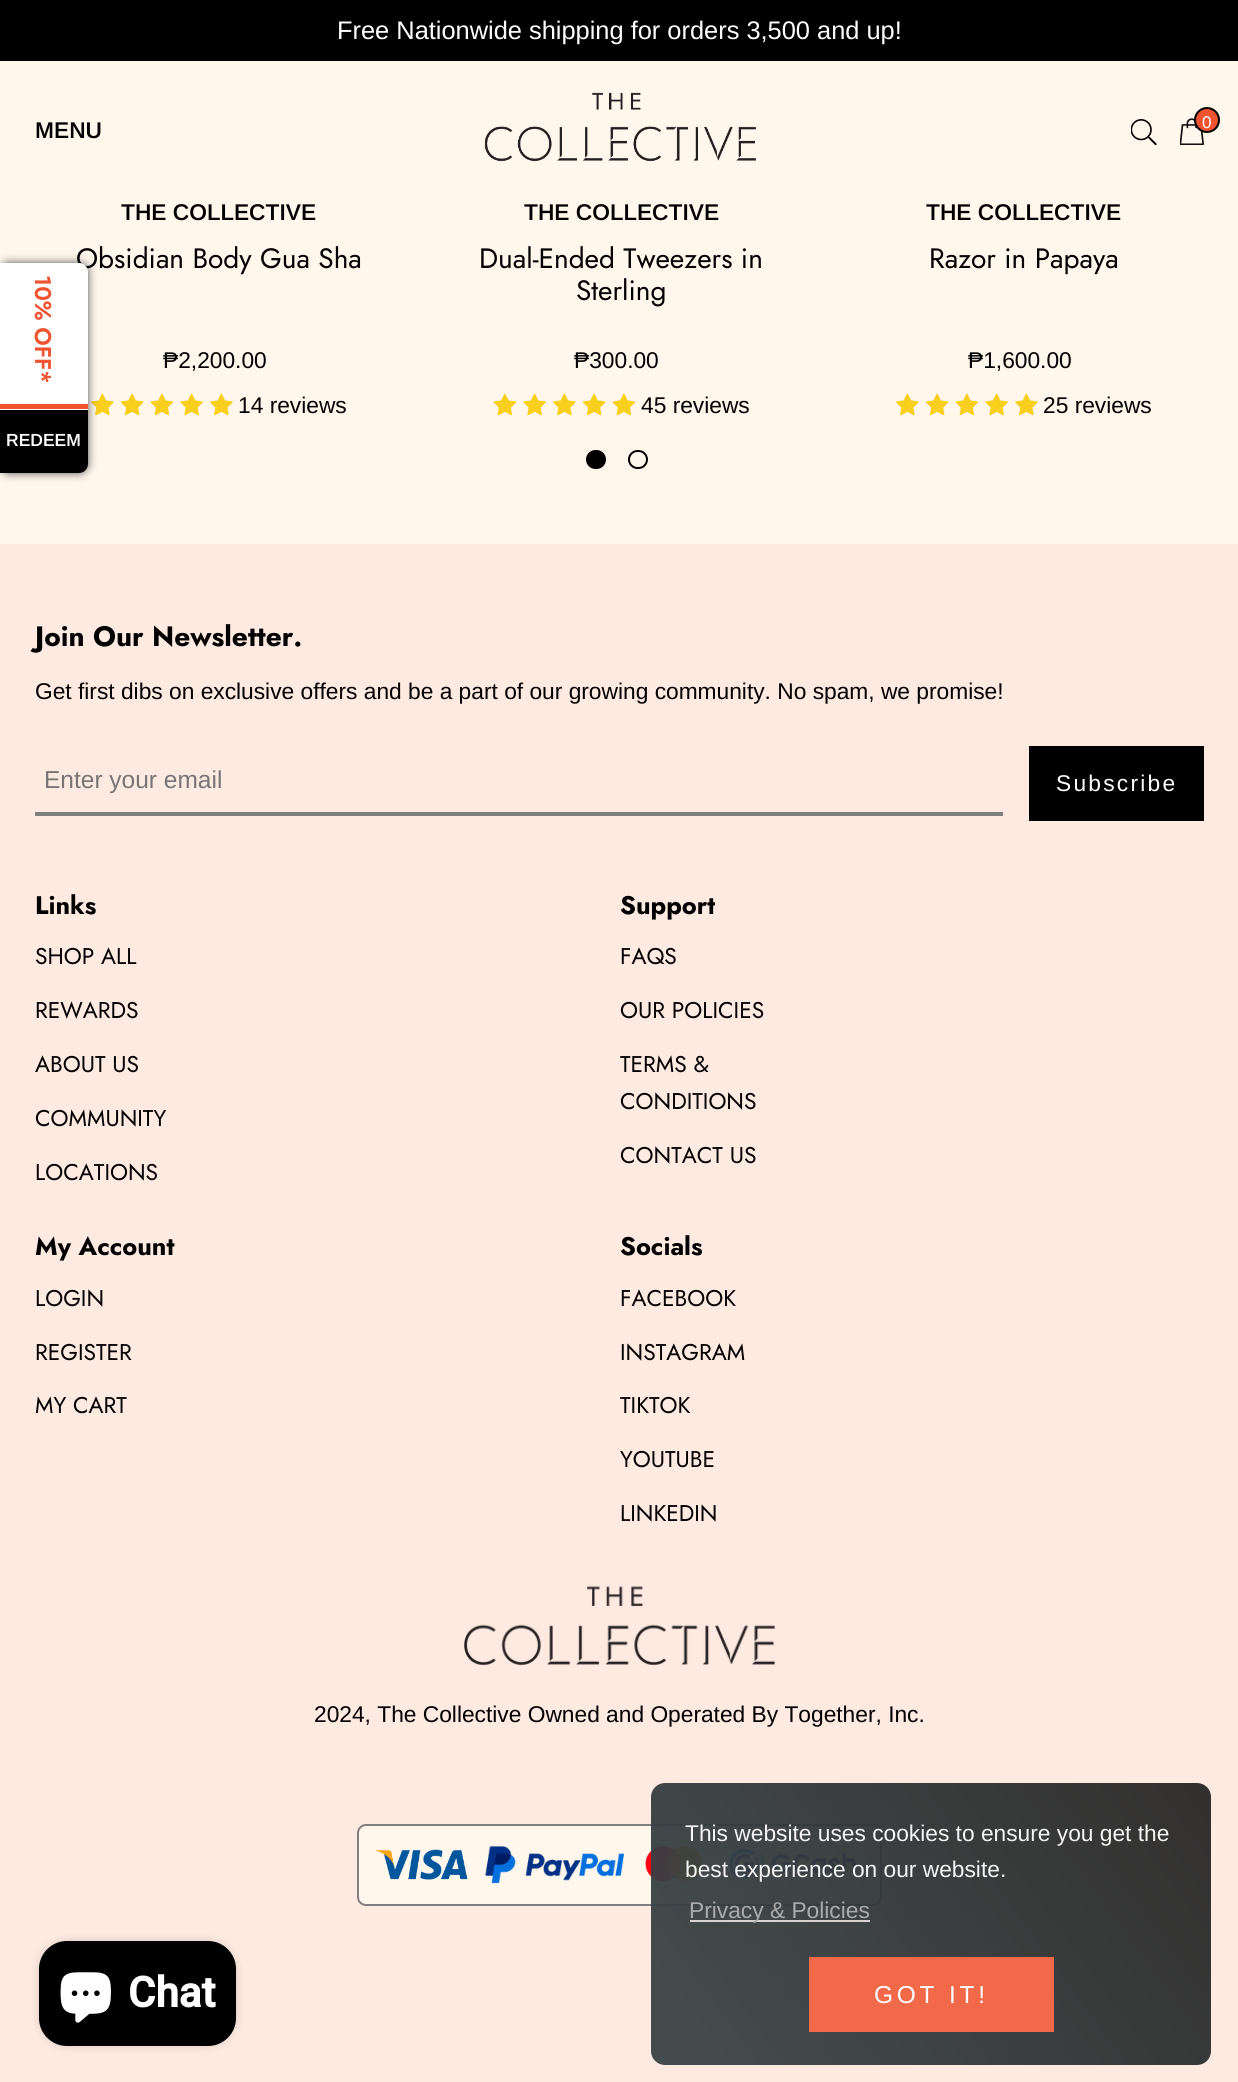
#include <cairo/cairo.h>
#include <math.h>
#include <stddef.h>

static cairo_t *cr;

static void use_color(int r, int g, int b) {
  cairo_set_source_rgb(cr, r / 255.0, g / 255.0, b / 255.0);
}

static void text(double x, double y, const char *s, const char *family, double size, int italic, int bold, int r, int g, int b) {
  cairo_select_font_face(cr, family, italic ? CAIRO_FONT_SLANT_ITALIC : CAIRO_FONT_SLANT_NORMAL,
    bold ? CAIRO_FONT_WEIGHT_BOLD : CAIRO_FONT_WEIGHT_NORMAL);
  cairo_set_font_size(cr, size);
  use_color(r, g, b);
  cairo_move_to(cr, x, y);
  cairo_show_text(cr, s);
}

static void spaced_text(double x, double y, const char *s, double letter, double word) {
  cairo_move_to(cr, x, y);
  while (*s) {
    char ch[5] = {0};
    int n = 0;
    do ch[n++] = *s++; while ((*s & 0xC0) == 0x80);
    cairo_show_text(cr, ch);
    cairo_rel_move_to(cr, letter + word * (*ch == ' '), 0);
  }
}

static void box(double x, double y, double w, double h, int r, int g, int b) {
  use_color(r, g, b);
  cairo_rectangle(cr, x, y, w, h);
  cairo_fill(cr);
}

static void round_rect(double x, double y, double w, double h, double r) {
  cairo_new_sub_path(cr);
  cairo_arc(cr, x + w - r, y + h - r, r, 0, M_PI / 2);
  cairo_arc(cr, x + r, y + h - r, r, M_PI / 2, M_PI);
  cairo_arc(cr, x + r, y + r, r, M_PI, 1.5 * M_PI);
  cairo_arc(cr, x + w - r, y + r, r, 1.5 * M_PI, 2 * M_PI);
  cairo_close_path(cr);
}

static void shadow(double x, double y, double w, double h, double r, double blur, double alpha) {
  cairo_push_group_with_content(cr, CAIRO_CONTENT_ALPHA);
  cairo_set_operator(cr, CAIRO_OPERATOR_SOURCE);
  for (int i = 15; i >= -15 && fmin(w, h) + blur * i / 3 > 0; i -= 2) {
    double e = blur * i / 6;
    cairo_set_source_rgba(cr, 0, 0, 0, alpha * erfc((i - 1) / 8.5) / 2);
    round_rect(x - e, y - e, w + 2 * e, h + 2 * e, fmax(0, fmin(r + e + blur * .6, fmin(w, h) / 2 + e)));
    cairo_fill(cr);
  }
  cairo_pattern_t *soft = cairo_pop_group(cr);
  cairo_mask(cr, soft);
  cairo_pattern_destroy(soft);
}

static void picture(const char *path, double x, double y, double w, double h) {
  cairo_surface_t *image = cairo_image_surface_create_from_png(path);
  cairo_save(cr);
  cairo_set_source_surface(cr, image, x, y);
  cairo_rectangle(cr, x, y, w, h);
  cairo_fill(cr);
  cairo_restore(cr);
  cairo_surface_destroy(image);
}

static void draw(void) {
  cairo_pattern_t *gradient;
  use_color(255, 247, 236);
  cairo_paint(cr);
  box(0, 0, 1238, 61, 0, 0, 0);
  picture("img_01.png", 484, 92, 272, 70);
  picture("img_02.png", 1131, 119, 26, 26);
  picture("img_03.png", 1180, 118, 24, 27);
  use_color(240, 83, 47);
  cairo_arc(cr, 1207, 120, 12, 0, 2 * M_PI);
  cairo_fill_preserve(cr);
  use_color(0, 0, 0);
  cairo_stroke(cr);
  picture("img_04.png", 91, 393, 23, 23);
  use_color(80, 80, 80);
  shadow(0, 263, 88, 210, 9, 4.5, 1);
  picture("img_05.png", 120, 393, 24, 23);
  picture("img_06.png", 150, 393, 24, 23);
  picture("img_07.png", 180, 393, 23, 23);
  picture("img_04.png", 210, 393, 23, 23);
  picture("img_06.png", 493, 393, 24, 23);
  picture("img_07.png", 523, 393, 23, 23);
  picture("img_04.png", 553, 393, 23, 23);
  picture("img_05.png", 582, 393, 24, 23);
  picture("img_06.png", 612, 393, 24, 23);
  picture("img_04.png", 896, 393, 23, 23);
  picture("img_05.png", 925, 393, 24, 23);
  picture("img_06.png", 955, 393, 24, 23);
  picture("img_07.png", 985, 393, 23, 23);
  picture("img_04.png", 1015, 393, 23, 23);
  use_color(0, 0, 0);
  round_rect(587, 451, 18, 17, 8.5);
  cairo_fill_preserve(cr);
  cairo_stroke(cr);
  round_rect(629, 451, 18, 17, 8.5);
  cairo_stroke(cr);
  box(0, 544, 1238, 1538, 254, 234, 225);
  box(35, 812, 968, 4, 127, 127, 127);
  box(1029, 746, 175, 75, 0, 0, 0);
  picture("img_08.png", 464, 1586, 312, 80);
  use_color(255, 247, 236);
  round_rect(358, 1825, 523, 80, 8);
  cairo_fill_preserve(cr);
  use_color(127, 127, 127);
  cairo_stroke(cr);
  picture("img_09.png", 376, 1849, 92, 31);
  picture("img_10.png", 485, 1845, 140, 39);
  picture("img_11.png", 645, 1846, 58, 36);
  picture("img_12.png", 729, 1848, 128, 31);
  use_color(0, 0, 0);
  shadow(39, 1941, 197, 105, 28, 4.5, 0.15);
  use_color(0, 0, 0);
  round_rect(39, 1941, 197, 105, 28);
  cairo_fill(cr);
  picture("img_13.png", 60, 1972, 51, 51);
  gradient = cairo_pattern_create_linear(1181, 1742, 681, 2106);
  cairo_pattern_add_color_stop_rgba(gradient, 0, 0.153, 0.149, 0.149, 0.95);
  cairo_pattern_add_color_stop_rgba(gradient, 0.9, 0.224, 0.259, 0.271, 0.95);
  cairo_set_source(cr, gradient);
  cairo_pattern_destroy(gradient);
  round_rect(651, 1783, 560, 282, 14);
  cairo_fill(cr);
  box(690, 1920, 180, 2, 216, 211, 209);
  box(809, 1957, 245, 75, 242, 105, 73);
  text(337, 39, "Free Nationwide shipping for orders 3,500 and up!", "Arimo", 25.4, 0, 0, 255, 255, 255);
  text(35, 138, "MENU", "Arimo SemiBold", 22.75, 0, 0, 0, 0, 0);
  text(1202, 128, "0", "Arimo", 17, 0, 0, 255, 255, 255);
  text(121, 220, "THE COLLECTIVE", "Arimo SemiBold", 22.75, 0, 0, 0, 0, 0);
  text(76, 268, "Obsidian Body Gua Sha", "Jost", 28, 0, 0, 0, 0, 0);
  use_color(255, 255, 255);
  cairo_new_path(cr);
  cairo_move_to(cr, 0, 263);
  cairo_line_to(cr, 79, 263);
  cairo_curve_to(cr, 84, 263, 88, 267, 88, 272);
  cairo_line_to(cr, 88, 464);
  cairo_curve_to(cr, 88, 469, 84, 473, 79, 473);
  cairo_line_to(cr, 0, 473);
  cairo_close_path(cr);
  cairo_fill(cr);
  cairo_save(cr);
  cairo_translate(cr, 35, 275);
  cairo_rotate(cr, 90 * M_PI / 180);
  text(0, 0, "10% OFF*", "Jost SemiBold", 22.75, 0, 0, 240, 83, 47);
  cairo_restore(cr);
  box(0, 404, 88, 5, 240, 83, 47);
  use_color(0, 0, 0);
  cairo_new_path(cr);
  cairo_move_to(cr, 0, 410);
  cairo_line_to(cr, 88, 410);
  cairo_line_to(cr, 88, 464);
  cairo_curve_to(cr, 88, 469, 84, 473, 79, 473);
  cairo_line_to(cr, 0, 473);
  cairo_close_path(cr);
  cairo_fill(cr);
  text(6, 446, "REDEEM", "Arimo SemiBold", 17.5, 0, 0, 255, 255, 255);
  text(163, 368, "₱2,200.00", "Arimo", 22.75, 0, 0, 0, 0, 0);
  text(238, 413, "14 reviews", "Arimo", 22.75, 0, 0, 0, 0, 0);
  text(524, 220, "THE COLLECTIVE", "Arimo SemiBold", 22.75, 0, 0, 0, 0, 0);
  text(479, 268, "Dual-Ended Tweezers in", "Jost", 28, 0, 0, 0, 0, 0);
  text(576, 300, "Sterling", "Jost", 28, 0, 0, 0, 0, 0);
  text(574, 368, "₱300.00", "Arimo", 22.75, 0, 0, 0, 0, 0);
  text(641, 413, "45 reviews", "Arimo", 22.75, 0, 0, 0, 0, 0);
  text(926, 220, "THE COLLECTIVE", "Arimo SemiBold", 22.75, 0, 0, 0, 0, 0);
  text(929, 268, "Razor in Papaya", "Jost", 28, 0, 0, 0, 0, 0);
  text(968, 368, "₱1,600.00", "Arimo", 22.75, 0, 0, 0, 0, 0);
  text(1043, 413, "25 reviews", "Arimo", 22.75, 0, 0, 0, 0, 0);
  text(35, 646, "Join Our Newsletter.", "Jost", 28, 0, 1, 0, 0, 0);
  text(35, 699, "Get first dibs on exclusive offers and be a part of our growing community. No spam, we promise!", "Arimo", 22.75, 0, 0, 0, 0, 0);
  text(44, 788, "Enter your email", "Arimo", 24.5, 0, 0, 117, 117, 117);
  cairo_set_font_size(cr, 22.75);
  use_color(255, 255, 255);
  spaced_text(1056, 791, "Subscribe", 2.25, 0);
  text(35, 914, "Links", "Jost", 25.4, 0, 1, 0, 0, 0);
  text(35, 964, "SHOP ALL", "Jost", 22.75, 0, 0, 0, 0, 0);
  text(35, 1018, "REWARDS", "Jost", 22.75, 0, 0, 0, 0, 0);
  text(35, 1072, "ABOUT US", "Jost", 22.75, 0, 0, 0, 0, 0);
  text(35, 1126, "COMMUNITY", "Jost", 22.75, 0, 0, 0, 0, 0);
  text(35, 1180, "LOCATIONS", "Jost", 22.75, 0, 0, 0, 0, 0);
  text(620, 914, "Support", "Jost", 25.4, 0, 1, 0, 0, 0);
  text(620, 964, "FAQS", "Jost", 22.75, 0, 0, 0, 0, 0);
  text(620, 1018, "OUR POLICIES", "Jost", 22.75, 0, 0, 0, 0, 0);
  text(620, 1072, "TERMS &", "Jost", 22.75, 0, 0, 0, 0, 0);
  text(620, 1109, "CONDITIONS", "Jost", 22.75, 0, 0, 0, 0, 0);
  text(620, 1163, "CONTACT US", "Jost", 22.75, 0, 0, 0, 0, 0);
  text(35, 1255, "My Account", "Jost", 25.4, 0, 1, 0, 0, 0);
  text(35, 1306, "LOGIN", "Jost", 22.75, 0, 0, 0, 0, 0);
  text(35, 1360, "REGISTER", "Jost", 22.75, 0, 0, 0, 0, 0);
  text(35, 1413, "MY CART", "Jost", 22.75, 0, 0, 0, 0, 0);
  text(620, 1255, "Socials", "Jost", 25.4, 0, 1, 0, 0, 0);
  text(620, 1306, "FACEBOOK", "Jost", 22.75, 0, 0, 0, 0, 0);
  text(620, 1360, "INSTAGRAM", "Jost", 22.75, 0, 0, 0, 0, 0);
  text(620, 1413, "TIKTOK", "Jost", 22.75, 0, 0, 0, 0, 0);
  text(620, 1467, "YOUTUBE", "Jost", 22.75, 0, 0, 0, 0, 0);
  text(620, 1521, "LINKEDIN", "Jost", 22.75, 0, 0, 0, 0, 0);
  text(314, 1722, "2024, The Collective Owned and Operated By Together, Inc.", "Arimo", 22.75, 0, 0, 0, 0, 0);
  text(128, 2007, "Chat", "Roboto", 42, 0, 1, 255, 255, 255);
  text(685, 1841, "This website uses cookies to ensure you get the", "Arimo", 22.75, 0, 0, 245, 245, 245);
  text(685, 1877, "best experience on our website.", "Arimo", 22.75, 0, 0, 245, 245, 245);
  text(689, 1918, "Privacy & Policies", "Arimo", 22.75, 0, 0, 170, 172, 172);
  cairo_set_font_size(cr, 24.5);
  use_color(255, 255, 255);
  spaced_text(874, 2003, "GOT IT!", 3.75, 0);
}

int main(void) {
  cairo_surface_t *surface = cairo_image_surface_create(CAIRO_FORMAT_RGB24, 1238, 2082);
  cr = cairo_create(surface);
  cairo_font_options_t *options = cairo_font_options_create();
  cairo_font_options_set_hint_metrics(options, CAIRO_HINT_METRICS_OFF);
  cairo_font_options_set_hint_style(options, CAIRO_HINT_STYLE_NONE);
  cairo_set_font_options(cr, options);
  cairo_set_miter_limit(cr, 4);
  draw();
  cairo_surface_write_to_png(surface, "out.png");
  cairo_font_options_destroy(options);
  cairo_destroy(cr);
  cairo_surface_destroy(surface);
  return 0;
}
